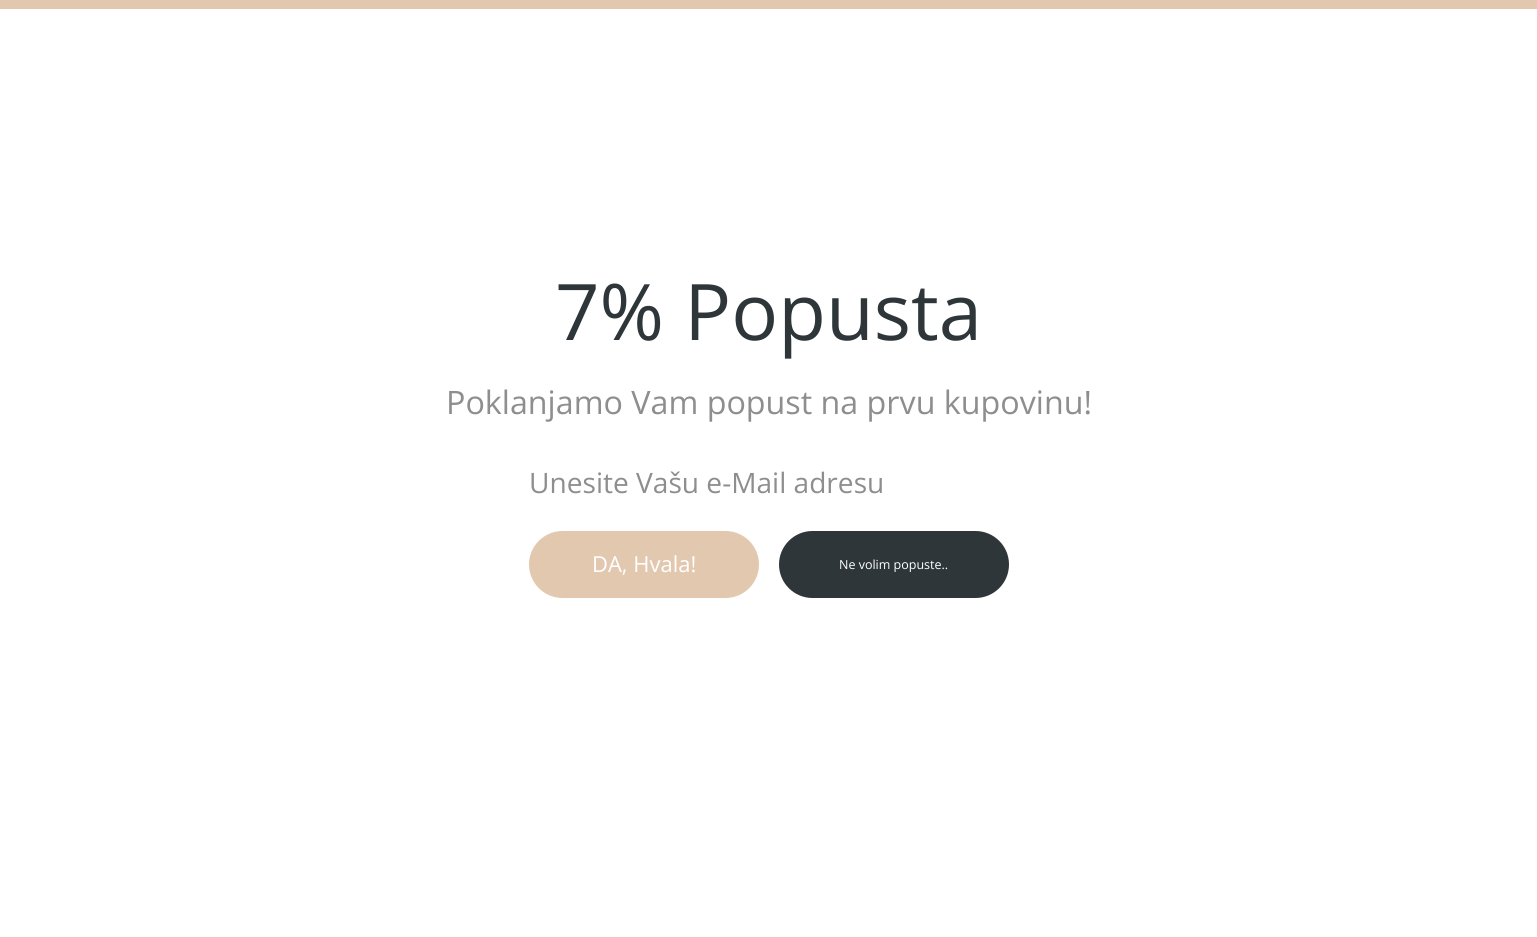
#include <cairo/cairo.h>
#include <math.h>
#include <stddef.h>

static cairo_t *cr;

static void use_color(int r, int g, int b) {
  cairo_set_source_rgb(cr, r / 255.0, g / 255.0, b / 255.0);
}

static void text(double x, double y, const char *s, const char *family, double size, int italic, int bold, int r, int g, int b) {
  cairo_select_font_face(cr, family, italic ? CAIRO_FONT_SLANT_ITALIC : CAIRO_FONT_SLANT_NORMAL,
    bold ? CAIRO_FONT_WEIGHT_BOLD : CAIRO_FONT_WEIGHT_NORMAL);
  cairo_set_font_size(cr, size);
  use_color(r, g, b);
  cairo_move_to(cr, x, y);
  cairo_show_text(cr, s);
}

static void box(double x, double y, double w, double h, int r, int g, int b) {
  use_color(r, g, b);
  cairo_rectangle(cr, x, y, w, h);
  cairo_fill(cr);
}

static void round_rect(double x, double y, double w, double h, double r) {
  cairo_new_sub_path(cr);
  cairo_arc(cr, x + w - r, y + h - r, r, 0, M_PI / 2);
  cairo_arc(cr, x + r, y + h - r, r, M_PI / 2, M_PI);
  cairo_arc(cr, x + r, y + r, r, M_PI, 1.5 * M_PI);
  cairo_arc(cr, x + w - r, y + r, r, 1.5 * M_PI, 2 * M_PI);
  cairo_close_path(cr);
}

static void draw(void) {
  use_color(255, 255, 255);
  cairo_paint(cr);
  box(0, 0, 1537, 9, 227, 200, 176);
  round_rect(529, 531, 230, 67, 33.5);
  cairo_fill(cr);
  use_color(46, 54, 57);
  round_rect(779, 531, 230, 67, 33.5);
  cairo_fill(cr);
  text(555, 340, "7% Popusta", "Open Sans", 78, 0, 0, 46, 54, 57);
  text(446, 414, "Poklanjamo Vam popust na prvu kupovinu!", "Open Sans", 32.25, 0, 0, 142, 142, 142);
  text(529, 493, "Unesite Vašu e-Mail adresu", "Open Sans", 28.1, 0, 0, 142, 142, 142);
  text(592, 572, "DA, Hvala!", "Open Sans", 22, 0, 0, 255, 255, 255);
  text(839, 569, "Ne volim popuste..", "Open Sans", 12.5, 0, 0, 255, 255, 255);
}

int main(void) {
  cairo_surface_t *surface = cairo_image_surface_create(CAIRO_FORMAT_RGB24, 1537, 937);
  cr = cairo_create(surface);
  cairo_font_options_t *options = cairo_font_options_create();
  cairo_font_options_set_hint_metrics(options, CAIRO_HINT_METRICS_OFF);
  cairo_font_options_set_hint_style(options, CAIRO_HINT_STYLE_NONE);
  cairo_set_font_options(cr, options);
  cairo_set_miter_limit(cr, 4);
  draw();
  cairo_surface_write_to_png(surface, "out.png");
  cairo_font_options_destroy(options);
  cairo_destroy(cr);
  cairo_surface_destroy(surface);
  return 0;
}
